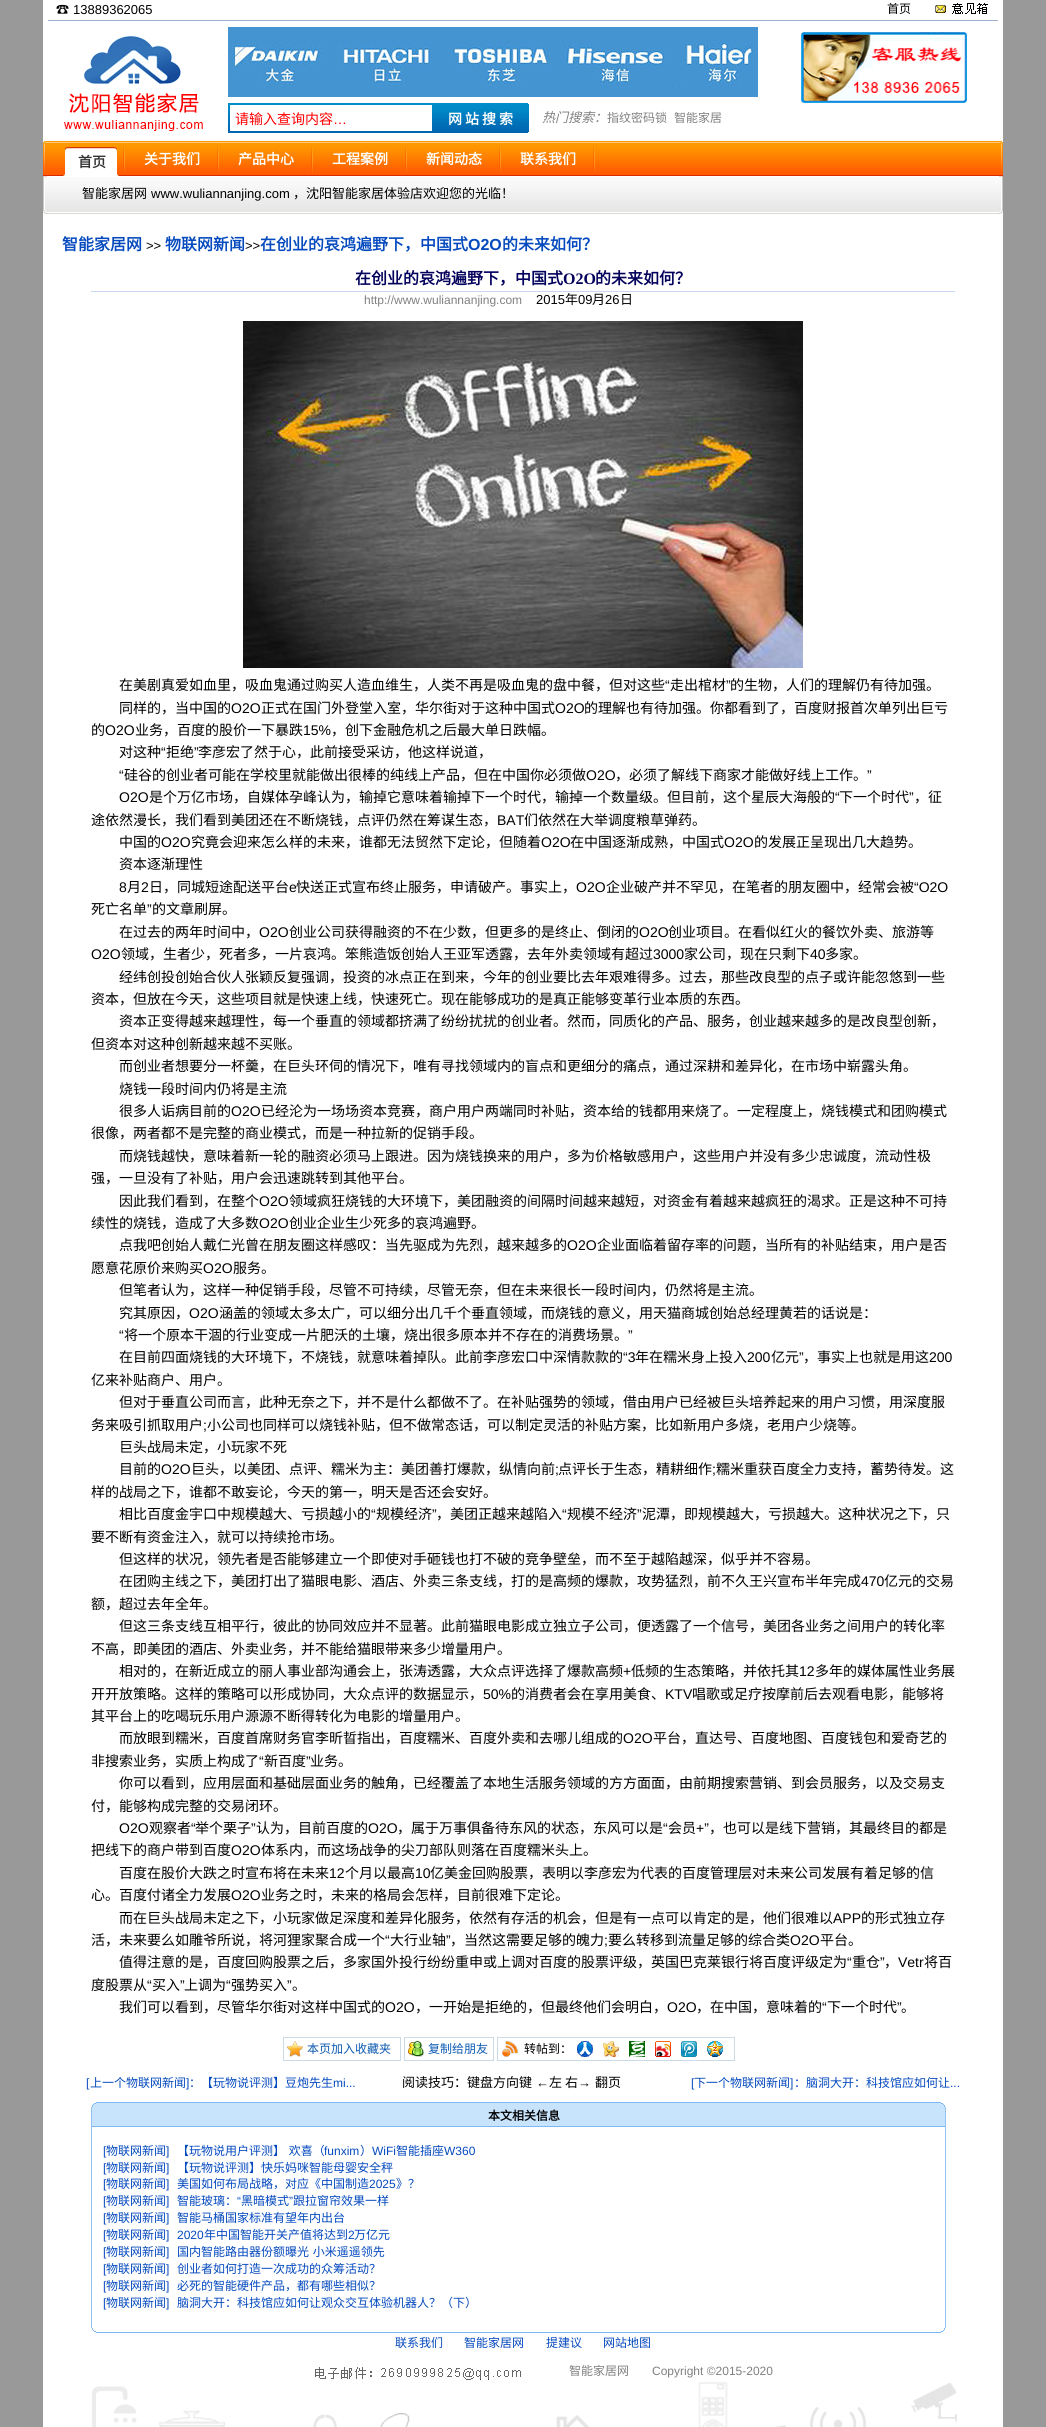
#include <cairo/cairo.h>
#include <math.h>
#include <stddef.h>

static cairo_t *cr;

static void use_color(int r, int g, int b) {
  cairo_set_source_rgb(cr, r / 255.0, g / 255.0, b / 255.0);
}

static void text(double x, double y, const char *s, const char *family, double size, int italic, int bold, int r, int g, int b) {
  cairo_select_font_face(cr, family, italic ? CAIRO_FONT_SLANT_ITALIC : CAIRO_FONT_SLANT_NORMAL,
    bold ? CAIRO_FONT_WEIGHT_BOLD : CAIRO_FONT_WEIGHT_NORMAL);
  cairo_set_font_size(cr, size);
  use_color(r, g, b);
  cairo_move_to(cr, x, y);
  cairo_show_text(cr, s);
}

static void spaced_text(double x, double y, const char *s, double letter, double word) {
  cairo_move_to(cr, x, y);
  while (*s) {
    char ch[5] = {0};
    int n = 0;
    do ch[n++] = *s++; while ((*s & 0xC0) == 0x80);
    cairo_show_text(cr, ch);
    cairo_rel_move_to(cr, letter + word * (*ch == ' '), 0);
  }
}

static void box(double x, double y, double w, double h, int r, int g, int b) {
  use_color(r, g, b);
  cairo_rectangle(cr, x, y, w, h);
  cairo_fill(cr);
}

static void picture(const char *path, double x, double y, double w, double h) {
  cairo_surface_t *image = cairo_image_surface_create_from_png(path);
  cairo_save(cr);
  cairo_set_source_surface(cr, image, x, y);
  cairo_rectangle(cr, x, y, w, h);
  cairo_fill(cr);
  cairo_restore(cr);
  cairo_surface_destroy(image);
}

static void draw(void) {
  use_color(153, 153, 153);
  cairo_paint(cr);
  box(43, 0, 960, 2427, 255, 255, 255);
  picture("img_01.png", 935, 3, 53, 11);
  box(48, 20, 950, 1, 158, 179, 209);
  picture("img_02.png", 64, 36, 139, 95);
  picture("img_03.png", 228, 27, 530, 70);
  picture("img_04.png", 228, 103, 204, 30);
  picture("img_05.png", 432, 103, 97, 30);
  picture("img_06.png", 801, 32, 166, 71);
  picture("img_07.png", 43, 141, 4, 73);
  picture("img_08.png", 999, 141, 4, 73);
  picture("img_09.png", 47, 141, 952, 73);
  picture("img_10.png", 63, 147, 5, 29);
  picture("img_11.png", 68, 147, 51, 29);
  picture("img_12.png", 123, 142, 2, 31);
  picture("img_12.png", 217, 142, 2, 31);
  picture("img_12.png", 311, 142, 2, 31);
  picture("img_12.png", 405, 142, 2, 31);
  picture("img_12.png", 499, 142, 2, 31);
  picture("img_12.png", 593, 142, 2, 31);
  box(91, 291, 864, 1, 200, 216, 242);
  picture("img_13.png", 243, 321, 560, 347);
  cairo_rectangle(cr, 283.5, 2037.5, 117, 23);
  use_color(202, 219, 231);
  cairo_set_line_width(cr, 1);
  cairo_stroke(cr);
  picture("img_14.png", 287, 2041, 16, 16);
  cairo_rectangle(cr, 404.5, 2037.5, 89, 23);
  cairo_stroke(cr);
  picture("img_15.png", 408, 2041, 16, 16);
  cairo_rectangle(cr, 497.5, 2037.5, 237, 23);
  cairo_stroke(cr);
  picture("img_16.png", 502, 2041, 16, 16);
  picture("img_17.png", 577, 2041, 16, 16);
  picture("img_18.png", 603, 2041, 16, 16);
  picture("img_19.png", 629, 2041, 16, 16);
  picture("img_20.png", 655, 2041, 16, 16);
  picture("img_21.png", 681, 2041, 16, 16);
  picture("img_22.png", 707, 2041, 16, 16);
  box(96, 2102, 845, 1, 124, 185, 244);
  box(94, 2103, 849, 1, 200, 227, 252);
  box(941, 2103, 2, 1, 124, 185, 244);
  box(94, 2103, 2, 1, 124, 185, 244);
  box(93, 2104, 851, 1, 200, 227, 252);
  box(943, 2104, 1, 1, 124, 185, 244);
  box(93, 2104, 1, 1, 124, 185, 244);
  box(92, 2105, 853, 21, 200, 227, 252);
  box(944, 2105, 1, 2, 124, 185, 244);
  box(92, 2105, 1, 2, 124, 185, 244);
  box(945, 2107, 1, 221, 150, 194, 241);
  box(91, 2107, 1, 221, 150, 194, 241);
  box(92, 2126, 853, 1, 124, 185, 244);
  box(944, 2328, 1, 2, 124, 185, 244);
  box(92, 2328, 1, 2, 124, 185, 244);
  box(943, 2330, 1, 1, 124, 185, 244);
  box(93, 2330, 1, 1, 124, 185, 244);
  box(941, 2331, 2, 1, 124, 185, 244);
  box(94, 2331, 2, 1, 124, 185, 244);
  box(96, 2332, 845, 1, 124, 185, 244);
  picture("img_23.png", 92, 2382, 865, 45);
  picture("img_24.png", 315, 2367, 206, 13);
  text(56, 14, "☎", "Noto Sans CJK SC", 13, 0, 0, 0, 0, 0);
  text(73, 14, "13889362065", "Liberation Sans", 13, 0, 0, 0, 0, 0);
  text(887, 13, "首页", "Noto Sans CJK SC", 12, 0, 0, 0, 0, 0);
  text(235, 124, "请输入查询内容", "Noto Sans CJK SC", 14, 0, 0, 255, 0, 0);
  text(333, 124, "…", "Liberation Sans", 14, 0, 0, 255, 0, 0);
  cairo_select_font_face(cr, "Noto Sans CJK SC", CAIRO_FONT_SLANT_NORMAL, CAIRO_FONT_WEIGHT_BOLD);
  use_color(255, 255, 255);
  spaced_text(448, 124, "网站搜索", 3, 0);
  text(542, 122, "热门搜索：", "Noto Sans CJK SC", 13, 1, 0, 128, 128, 128);
  text(607, 122, "指纹密码锁", "Noto Sans CJK SC", 12, 0, 0, 128, 128, 128);
  text(674, 122, "智能家居", "Noto Sans CJK SC", 12, 0, 0, 128, 128, 128);
  text(78, 167, "首页", "Noto Sans CJK SC", 14, 0, 1, 51, 51, 51);
  text(144, 164, "关于我们", "Noto Sans CJK SC", 14, 0, 1, 255, 255, 255);
  text(238, 164, "产品中心", "Noto Sans CJK SC", 14, 0, 1, 255, 255, 255);
  text(332, 164, "工程案例", "Noto Sans CJK SC", 14, 0, 1, 255, 255, 255);
  text(426, 164, "新闻动态", "Noto Sans CJK SC", 14, 0, 1, 255, 255, 255);
  text(520, 164, "联系我们", "Noto Sans CJK SC", 14, 0, 1, 255, 255, 255);
  text(82, 198, "智能家居网", "Noto Sans CJK SC", 13, 0, 0, 0, 0, 0);
  text(151, 198, "www.wuliannanjing.com", "Liberation Sans", 13, 0, 0, 0, 0, 0);
  text(293, 198, "，沈阳智能家居体验店欢迎您的光临！", "Noto Sans CJK SC", 13, 0, 0, 0, 0, 0);
  text(62, 250, "智能家居网", "Noto Sans CJK SC", 16, 0, 1, 4, 73, 190);
  text(146, 250, ">>", "Liberation Sans", 13, 0, 0, 0, 0, 0);
  text(165, 250, "物联网新闻", "Noto Sans CJK SC", 16, 0, 1, 4, 73, 190);
  text(245, 250, ">>", "Liberation Sans", 13, 0, 0, 0, 0, 0);
  text(260, 250, "在创业的哀鸿遍野下，中国式", "Noto Sans CJK SC", 16, 0, 1, 4, 73, 190);
  text(468, 250, "O2O", "Liberation Sans", 16, 0, 1, 4, 73, 190);
  text(502, 250, "的未来如何？", "Noto Sans CJK SC", 16, 0, 1, 4, 73, 190);
  text(355, 284, "在创业的哀鸿遍野下，中国式", "Noto Sans CJK SC", 16, 0, 1, 3, 0, 92);
  text(563, 284, "O2O", "Liberation Serif", 16, 0, 1, 3, 0, 92);
  text(595, 284, "的未来如何？", "Noto Sans CJK SC", 16, 0, 1, 3, 0, 92);
  text(364, 304, "http://www.wuliannanjing.com", "Liberation Sans", 12, 0, 0, 128, 128, 128);
  text(536, 304, "2015", "Liberation Sans", 13, 0, 0, 0, 0, 0);
  text(565, 304, "年", "Noto Sans CJK SC", 13, 0, 0, 0, 0, 0);
  text(578, 304, "09", "Liberation Sans", 13, 0, 0, 0, 0, 0);
  text(592, 304, "月", "Noto Sans CJK SC", 13, 0, 0, 0, 0, 0);
  text(605, 304, "26", "Liberation Sans", 13, 0, 0, 0, 0, 0);
  text(620, 304, "日", "Noto Sans CJK SC", 13, 0, 0, 0, 0, 0);
  text(119, 690, "在美剧真爱如血里，吸血鬼通过购买人造血维生，人类不再是吸血鬼的盘中餐，但对这些", "Noto Sans CJK SC", 14, 0, 0, 0, 0, 0);
  text(665, 690, "“", "Liberation Sans", 14, 0, 0, 0, 0, 0);
  text(670, 690, "走出棺材", "Noto Sans CJK SC", 14, 0, 0, 0, 0, 0);
  text(726, 690, "”", "Liberation Sans", 14, 0, 0, 0, 0, 0);
  text(730, 690, "的生物，人们的理解仍有待加强。", "Noto Sans CJK SC", 14, 0, 0, 0, 0, 0);
  text(119, 713, "同样的，当中国的", "Noto Sans CJK SC", 14, 0, 0, 0, 0, 0);
  text(231, 713, "O2O", "Liberation Sans", 14, 0, 0, 0, 0, 0);
  text(261, 713, "正式在国门外登堂入室，华尔街对于这种中国式", "Noto Sans CJK SC", 14, 0, 0, 0, 0, 0);
  text(555, 713, "O2O", "Liberation Sans", 14, 0, 0, 0, 0, 0);
  text(584, 713, "的理解也有待加强。你都看到了，百度财报首次单列出巨亏", "Noto Sans CJK SC", 14, 0, 0, 0, 0, 0);
  text(91, 735, "的", "Noto Sans CJK SC", 14, 0, 0, 0, 0, 0);
  text(105, 735, "O2O", "Liberation Sans", 14, 0, 0, 0, 0, 0);
  text(135, 735, "业务，百度的股价一下暴跌", "Noto Sans CJK SC", 14, 0, 0, 0, 0, 0);
  text(303, 735, "15%", "Liberation Sans", 14, 0, 0, 0, 0, 0);
  text(331, 735, "，创下金融危机之后最大单日跌幅。", "Noto Sans CJK SC", 14, 0, 0, 0, 0, 0);
  text(119, 757, "对这种", "Noto Sans CJK SC", 14, 0, 0, 0, 0, 0);
  text(161, 757, "“", "Liberation Sans", 14, 0, 0, 0, 0, 0);
  text(166, 757, "拒绝", "Noto Sans CJK SC", 14, 0, 0, 0, 0, 0);
  text(194, 757, "”", "Liberation Sans", 14, 0, 0, 0, 0, 0);
  text(198, 757, "李彦宏了然于心，此前接受采访，他这样说道，", "Noto Sans CJK SC", 14, 0, 0, 0, 0, 0);
  text(119, 780, "“", "Liberation Sans", 14, 0, 0, 0, 0, 0);
  text(124, 780, "硅谷的创业者可能在学校里就能做出很棒的纯线上产品，但在中国你必须做", "Noto Sans CJK SC", 14, 0, 0, 0, 0, 0);
  text(586, 780, "O2O", "Liberation Sans", 14, 0, 0, 0, 0, 0);
  text(615, 780, "，必须了解线下商家才能做好线上工作。", "Noto Sans CJK SC", 14, 0, 0, 0, 0, 0);
  text(867, 780, "”", "Liberation Sans", 14, 0, 0, 0, 0, 0);
  text(119, 802, "O2O", "Liberation Sans", 14, 0, 0, 0, 0, 0);
  text(149, 802, "是个万亿市场，自媒体孕峰认为，输掉它意味着输掉下一个时代，输掉一个数量级。但目前，这个星辰大海般的", "Noto Sans CJK SC", 14, 0, 0, 0, 0, 0);
  text(835, 802, "“", "Liberation Sans", 14, 0, 0, 0, 0, 0);
  text(839, 802, "下一个时代", "Noto Sans CJK SC", 14, 0, 0, 0, 0, 0);
  text(909, 802, "”", "Liberation Sans", 14, 0, 0, 0, 0, 0);
  text(914, 802, "，征", "Noto Sans CJK SC", 14, 0, 0, 0, 0, 0);
  text(91, 825, "途依然漫长，我们看到美团还在不断烧钱，点评仍然在筹谋生态，", "Noto Sans CJK SC", 14, 0, 0, 0, 0, 0);
  text(497, 825, "BAT", "Liberation Sans", 14, 0, 0, 0, 0, 0);
  text(524, 825, "们依然在大举调度粮草弹药。", "Noto Sans CJK SC", 14, 0, 0, 0, 0, 0);
  text(119, 847, "中国的", "Noto Sans CJK SC", 14, 0, 0, 0, 0, 0);
  text(161, 847, "O2O", "Liberation Sans", 14, 0, 0, 0, 0, 0);
  text(191, 847, "究竟会迎来怎么样的未来，谁都无法贸然下定论，但随着", "Noto Sans CJK SC", 14, 0, 0, 0, 0, 0);
  text(541, 847, "O2O", "Liberation Sans", 14, 0, 0, 0, 0, 0);
  text(570, 847, "在中国逐渐成熟，中国式", "Noto Sans CJK SC", 14, 0, 0, 0, 0, 0);
  text(724, 847, "O2O", "Liberation Sans", 14, 0, 0, 0, 0, 0);
  text(754, 847, "的发展正呈现出几大趋势。", "Noto Sans CJK SC", 14, 0, 0, 0, 0, 0);
  text(119, 869, "资本逐渐理性", "Noto Sans CJK SC", 14, 0, 0, 0, 0, 0);
  text(119, 892, "8", "Liberation Sans", 14, 0, 0, 0, 0, 0);
  text(127, 892, "月", "Noto Sans CJK SC", 14, 0, 0, 0, 0, 0);
  text(141, 892, "2", "Liberation Sans", 14, 0, 0, 0, 0, 0);
  text(149, 892, "日，同城短途配送平台", "Noto Sans CJK SC", 14, 0, 0, 0, 0, 0);
  text(289, 892, "e", "Liberation Sans", 14, 0, 0, 0, 0, 0);
  text(296, 892, "快送正式宣布终止服务，申请破产。事实上，", "Noto Sans CJK SC", 14, 0, 0, 0, 0, 0);
  text(576, 892, "O2O", "Liberation Sans", 14, 0, 0, 0, 0, 0);
  text(606, 892, "企业破产并不罕见，在笔者的朋友圈中，经常会被", "Noto Sans CJK SC", 14, 0, 0, 0, 0, 0);
  text(914, 892, "“O2O", "Liberation Sans", 14, 0, 0, 0, 0, 0);
  text(91, 914, "死亡名单", "Noto Sans CJK SC", 14, 0, 0, 0, 0, 0);
  text(147, 914, "”", "Liberation Sans", 14, 0, 0, 0, 0, 0);
  text(152, 914, "的文章刷屏。", "Noto Sans CJK SC", 14, 0, 0, 0, 0, 0);
  text(119, 937, "在过去的两年时间中，", "Noto Sans CJK SC", 14, 0, 0, 0, 0, 0);
  text(259, 937, "O2O", "Liberation Sans", 14, 0, 0, 0, 0, 0);
  text(289, 937, "创业公司获得融资的不在少数，但更多的是终止、倒闭的", "Noto Sans CJK SC", 14, 0, 0, 0, 0, 0);
  text(639, 937, "O2O", "Liberation Sans", 14, 0, 0, 0, 0, 0);
  text(668, 937, "创业项目。在看似红火的餐饮外卖、旅游等", "Noto Sans CJK SC", 14, 0, 0, 0, 0, 0);
  text(91, 959, "O2O", "Liberation Sans", 14, 0, 0, 0, 0, 0);
  text(121, 959, "领域，生者少，死者多，一片哀鸿。笨熊造饭创始人王亚军透露，去年外卖领域有超过", "Noto Sans CJK SC", 14, 0, 0, 0, 0, 0);
  text(653, 959, "3000", "Liberation Sans", 14, 0, 0, 0, 0, 0);
  text(684, 959, "家公司，现在只剩下", "Noto Sans CJK SC", 14, 0, 0, 0, 0, 0);
  text(810, 959, "40", "Liberation Sans", 14, 0, 0, 0, 0, 0);
  text(825, 959, "多家。", "Noto Sans CJK SC", 14, 0, 0, 0, 0, 0);
  text(119, 982, "经纬创投创始合伙人张颖反复强调，投资的冰点正在到来，今年的创业要比去年艰难得多。过去，那些改良型的点子或许能忽悠到一些", "Noto Sans CJK SC", 14, 0, 0, 0, 0, 0);
  text(91, 1004, "资本，但放在今天，这些项目就是快速上线，快速死亡。现在能够成功的是真正能够变革行业本质的东西。", "Noto Sans CJK SC", 14, 0, 0, 0, 0, 0);
  text(119, 1026, "资本正变得越来越理性，每一个垂直的领域都挤满了纷纷扰扰的创业者。然而，同质化的产品、服务，创业越来越多的是改良型创新，", "Noto Sans CJK SC", 14, 0, 0, 0, 0, 0);
  text(91, 1049, "但资本对这种创新越来越不买账。", "Noto Sans CJK SC", 14, 0, 0, 0, 0, 0);
  text(119, 1071, "而创业者想要分一杯羹，在巨头环伺的情况下，唯有寻找领域内的盲点和更细分的痛点，通过深耕和差异化，在市场中崭露头角。", "Noto Sans CJK SC", 14, 0, 0, 0, 0, 0);
  text(119, 1094, "烧钱一段时间内仍将是主流", "Noto Sans CJK SC", 14, 0, 0, 0, 0, 0);
  text(119, 1116, "很多人诟病目前的", "Noto Sans CJK SC", 14, 0, 0, 0, 0, 0);
  text(231, 1116, "O2O", "Liberation Sans", 14, 0, 0, 0, 0, 0);
  text(261, 1116, "已经沦为一场场资本竞赛，商户用户两端同时补贴，资本给的钱都用来烧了。一定程度上，烧钱模式和团购模式", "Noto Sans CJK SC", 14, 0, 0, 0, 0, 0);
  text(91, 1138, "很像，两者都不是完整的商业模式，而是一种拉新的促销手段。", "Noto Sans CJK SC", 14, 0, 0, 0, 0, 0);
  text(119, 1161, "而烧钱越快，意味着新一轮的融资必须马上跟进。因为烧钱换来的用户，多为价格敏感用户，这些用户并没有多少忠诚度，流动性极", "Noto Sans CJK SC", 14, 0, 0, 0, 0, 0);
  text(91, 1183, "强，一旦没有了补贴，用户会迅速跳转到其他平台。", "Noto Sans CJK SC", 14, 0, 0, 0, 0, 0);
  text(119, 1206, "因此我们看到，在整个", "Noto Sans CJK SC", 14, 0, 0, 0, 0, 0);
  text(259, 1206, "O2O", "Liberation Sans", 14, 0, 0, 0, 0, 0);
  text(289, 1206, "领域疯狂烧钱的大环境下，美团融资的间隔时间越来越短，对资金有着越来越疯狂的渴求。正是这种不可持", "Noto Sans CJK SC", 14, 0, 0, 0, 0, 0);
  text(91, 1228, "续性的烧钱，造成了大多数", "Noto Sans CJK SC", 14, 0, 0, 0, 0, 0);
  text(259, 1228, "O2O", "Liberation Sans", 14, 0, 0, 0, 0, 0);
  text(289, 1228, "创业企业生少死多的哀鸿遍野。", "Noto Sans CJK SC", 14, 0, 0, 0, 0, 0);
  text(119, 1250, "点我吧创始人戴仁光曾在朋友圈这样感叹：当先驱成为先烈，越来越多的", "Noto Sans CJK SC", 14, 0, 0, 0, 0, 0);
  text(567, 1250, "O2O", "Liberation Sans", 14, 0, 0, 0, 0, 0);
  text(597, 1250, "企业面临着留存率的问题，当所有的补贴结束，用户是否", "Noto Sans CJK SC", 14, 0, 0, 0, 0, 0);
  text(91, 1273, "愿意花原价来购买", "Noto Sans CJK SC", 14, 0, 0, 0, 0, 0);
  text(203, 1273, "O2O", "Liberation Sans", 14, 0, 0, 0, 0, 0);
  text(233, 1273, "服务。", "Noto Sans CJK SC", 14, 0, 0, 0, 0, 0);
  text(119, 1295, "但笔者认为，这样一种促销手段，尽管不可持续，尽管无奈，但在未来很长一段时间内，仍然将是主流。", "Noto Sans CJK SC", 14, 0, 0, 0, 0, 0);
  text(119, 1318, "究其原因，", "Noto Sans CJK SC", 14, 0, 0, 0, 0, 0);
  text(189, 1318, "O2O", "Liberation Sans", 14, 0, 0, 0, 0, 0);
  text(219, 1318, "涵盖的领域太多太广，可以细分出几千个垂直领域，而烧钱的意义，用天猫商城创始总经理黄若的话说是：", "Noto Sans CJK SC", 14, 0, 0, 0, 0, 0);
  text(119, 1340, "“", "Liberation Sans", 14, 0, 0, 0, 0, 0);
  text(124, 1340, "将一个原本干涸的行业变成一片肥沃的土壤，烧出很多原本并不存在的消费场景。", "Noto Sans CJK SC", 14, 0, 0, 0, 0, 0);
  text(628, 1340, "”", "Liberation Sans", 14, 0, 0, 0, 0, 0);
  text(119, 1362, "在目前四面烧钱的大环境下，不烧钱，就意味着掉队。此前李彦宏口中深情款款的", "Noto Sans CJK SC", 14, 0, 0, 0, 0, 0);
  text(623, 1362, "“3", "Liberation Sans", 14, 0, 0, 0, 0, 0);
  text(635, 1362, "年在糯米身上投入", "Noto Sans CJK SC", 14, 0, 0, 0, 0, 0);
  text(747, 1362, "200", "Liberation Sans", 14, 0, 0, 0, 0, 0);
  text(771, 1362, "亿元", "Noto Sans CJK SC", 14, 0, 0, 0, 0, 0);
  text(799, 1362, "”", "Liberation Sans", 14, 0, 0, 0, 0, 0);
  text(803, 1362, "，事实上也就是用这", "Noto Sans CJK SC", 14, 0, 0, 0, 0, 0);
  text(929, 1362, "200", "Liberation Sans", 14, 0, 0, 0, 0, 0);
  text(91, 1385, "亿来补贴商户、用户。", "Noto Sans CJK SC", 14, 0, 0, 0, 0, 0);
  text(119, 1407, "但对于垂直公司而言，此种无奈之下，并不是什么都做不了。在补贴强势的领域，借由用户已经被巨头培养起来的用户习惯，用深度服", "Noto Sans CJK SC", 14, 0, 0, 0, 0, 0);
  text(91, 1430, "务来吸引抓取用户", "Noto Sans CJK SC", 14, 0, 0, 0, 0, 0);
  text(203, 1430, ";", "Liberation Sans", 14, 0, 0, 0, 0, 0);
  text(207, 1430, "小公司也同样可以烧钱补贴，但不做常态话，可以制定灵活的补贴方案，比如新用户多烧，老用户少烧等。", "Noto Sans CJK SC", 14, 0, 0, 0, 0, 0);
  text(119, 1452, "巨头战局未定，小玩家不死", "Noto Sans CJK SC", 14, 0, 0, 0, 0, 0);
  text(119, 1474, "目前的", "Noto Sans CJK SC", 14, 0, 0, 0, 0, 0);
  text(161, 1474, "O2O", "Liberation Sans", 14, 0, 0, 0, 0, 0);
  text(191, 1474, "巨头，以美团、点评、糯米为主：美团善打爆款，纵情向前", "Noto Sans CJK SC", 14, 0, 0, 0, 0, 0);
  text(555, 1474, ";", "Liberation Sans", 14, 0, 0, 0, 0, 0);
  text(558, 1474, "点评长于生态，精耕细作", "Noto Sans CJK SC", 14, 0, 0, 0, 0, 0);
  text(712, 1474, ";", "Liberation Sans", 14, 0, 0, 0, 0, 0);
  text(716, 1474, "糯米重获百度全力支持，蓄势待发。这", "Noto Sans CJK SC", 14, 0, 0, 0, 0, 0);
  text(91, 1497, "样的战局之下，谁都不敢妄论，今天的第一，明天是否还会安好。", "Noto Sans CJK SC", 14, 0, 0, 0, 0, 0);
  text(119, 1519, "相比百度金宇口中规模越大、亏损越小的", "Noto Sans CJK SC", 14, 0, 0, 0, 0, 0);
  text(371, 1519, "“", "Liberation Sans", 14, 0, 0, 0, 0, 0);
  text(376, 1519, "规模经济", "Noto Sans CJK SC", 14, 0, 0, 0, 0, 0);
  text(432, 1519, "”", "Liberation Sans", 14, 0, 0, 0, 0, 0);
  text(436, 1519, "，美团正越来越陷入", "Noto Sans CJK SC", 14, 0, 0, 0, 0, 0);
  text(562, 1519, "“", "Liberation Sans", 14, 0, 0, 0, 0, 0);
  text(567, 1519, "规模不经济", "Noto Sans CJK SC", 14, 0, 0, 0, 0, 0);
  text(637, 1519, "”", "Liberation Sans", 14, 0, 0, 0, 0, 0);
  text(642, 1519, "泥潭，即规模越大，亏损越大。这种状况之下，只", "Noto Sans CJK SC", 14, 0, 0, 0, 0, 0);
  text(91, 1542, "要不断有资金注入，就可以持续抢市场。", "Noto Sans CJK SC", 14, 0, 0, 0, 0, 0);
  text(119, 1564, "但这样的状况，领先者是否能够建立一个即使对手砸钱也打不破的竞争壁垒，而不至于越陷越深，似乎并不容易。", "Noto Sans CJK SC", 14, 0, 0, 0, 0, 0);
  text(119, 1586, "在团购主线之下，美团打出了猫眼电影、酒店、外卖三条支线，打的是高频的爆款，攻势猛烈，前不久王兴宣布半年完成", "Noto Sans CJK SC", 14, 0, 0, 0, 0, 0);
  text(861, 1586, "470", "Liberation Sans", 14, 0, 0, 0, 0, 0);
  text(884, 1586, "亿元的交易", "Noto Sans CJK SC", 14, 0, 0, 0, 0, 0);
  text(91, 1609, "额，超过去年全年。", "Noto Sans CJK SC", 14, 0, 0, 0, 0, 0);
  text(119, 1631, "但这三条支线互相平行，彼此的协同效应并不显著。此前猫眼电影成立独立子公司，便透露了一个信号，美团各业务之间用户的转化率", "Noto Sans CJK SC", 14, 0, 0, 0, 0, 0);
  text(91, 1654, "不高，即美团的酒店、外卖业务，并不能给猫眼带来多少增量用户。", "Noto Sans CJK SC", 14, 0, 0, 0, 0, 0);
  text(119, 1676, "相对的，在新近成立的丽人事业部沟通会上，张涛透露，大众点评选择了爆款高频", "Noto Sans CJK SC", 14, 0, 0, 0, 0, 0);
  text(623, 1676, "+", "Liberation Sans", 14, 0, 0, 0, 0, 0);
  text(631, 1676, "低频的生态策略，并依托其", "Noto Sans CJK SC", 14, 0, 0, 0, 0, 0);
  text(799, 1676, "12", "Liberation Sans", 14, 0, 0, 0, 0, 0);
  text(815, 1676, "多年的媒体属性业务展", "Noto Sans CJK SC", 14, 0, 0, 0, 0, 0);
  text(91, 1699, "开开放策略。这样的策略可以形成协同，大众点评的数据显示，", "Noto Sans CJK SC", 14, 0, 0, 0, 0, 0);
  text(483, 1699, "50%", "Liberation Sans", 14, 0, 0, 0, 0, 0);
  text(511, 1699, "的消费者会在享用美食、", "Noto Sans CJK SC", 14, 0, 0, 0, 0, 0);
  text(665, 1699, "KTV", "Liberation Sans", 14, 0, 0, 0, 0, 0);
  text(692, 1699, "唱歌或足疗按摩前后去观看电影，能够将", "Noto Sans CJK SC", 14, 0, 0, 0, 0, 0);
  text(91, 1721, "其平台上的吃喝玩乐用户源源不断得转化为电影的增量用户。", "Noto Sans CJK SC", 14, 0, 0, 0, 0, 0);
  text(119, 1743, "而放眼到糯米，百度首席财务官李昕晢指出，百度糯米、百度外卖和去哪儿组成的", "Noto Sans CJK SC", 14, 0, 0, 0, 0, 0);
  text(623, 1743, "O2O", "Liberation Sans", 14, 0, 0, 0, 0, 0);
  text(653, 1743, "平台，直达号、百度地图、百度钱包和爱奇艺的", "Noto Sans CJK SC", 14, 0, 0, 0, 0, 0);
  text(91, 1766, "非搜索业务，实质上构成了", "Noto Sans CJK SC", 14, 0, 0, 0, 0, 0);
  text(259, 1766, "“", "Liberation Sans", 14, 0, 0, 0, 0, 0);
  text(264, 1766, "新百度", "Noto Sans CJK SC", 14, 0, 0, 0, 0, 0);
  text(306, 1766, "”", "Liberation Sans", 14, 0, 0, 0, 0, 0);
  text(310, 1766, "业务。", "Noto Sans CJK SC", 14, 0, 0, 0, 0, 0);
  text(119, 1788, "你可以看到，应用层面和基础层面业务的触角，已经覆盖了本地生活服务领域的方方面面，由前期搜索营销、到会员服务，以及交易支", "Noto Sans CJK SC", 14, 0, 0, 0, 0, 0);
  text(91, 1811, "付，能够构成完整的交易闭环。", "Noto Sans CJK SC", 14, 0, 0, 0, 0, 0);
  text(119, 1833, "O2O", "Liberation Sans", 14, 0, 0, 0, 0, 0);
  text(149, 1833, "观察者", "Noto Sans CJK SC", 14, 0, 0, 0, 0, 0);
  text(191, 1833, "“", "Liberation Sans", 14, 0, 0, 0, 0, 0);
  text(195, 1833, "举个栗子", "Noto Sans CJK SC", 14, 0, 0, 0, 0, 0);
  text(251, 1833, "”", "Liberation Sans", 14, 0, 0, 0, 0, 0);
  text(256, 1833, "认为，目前百度的", "Noto Sans CJK SC", 14, 0, 0, 0, 0, 0);
  text(368, 1833, "O2O", "Liberation Sans", 14, 0, 0, 0, 0, 0);
  text(397, 1833, "，属于万事俱备待东风的状态，东风可以是", "Noto Sans CJK SC", 14, 0, 0, 0, 0, 0);
  text(663, 1833, "“", "Liberation Sans", 14, 0, 0, 0, 0, 0);
  text(668, 1833, "会员", "Noto Sans CJK SC", 14, 0, 0, 0, 0, 0);
  text(696, 1833, "+”", "Liberation Sans", 14, 0, 0, 0, 0, 0);
  text(709, 1833, "，也可以是线下营销，其最终目的都是", "Noto Sans CJK SC", 14, 0, 0, 0, 0, 0);
  text(91, 1855, "把线下的商户带到百度", "Noto Sans CJK SC", 14, 0, 0, 0, 0, 0);
  text(231, 1855, "O2O", "Liberation Sans", 14, 0, 0, 0, 0, 0);
  text(261, 1855, "体系内，而这场战争的尖刀部队则落在百度糯米头上。", "Noto Sans CJK SC", 14, 0, 0, 0, 0, 0);
  text(119, 1878, "百度在股价大跌之时宣布将在未来", "Noto Sans CJK SC", 14, 0, 0, 0, 0, 0);
  text(329, 1878, "12", "Liberation Sans", 14, 0, 0, 0, 0, 0);
  text(345, 1878, "个月以最高", "Noto Sans CJK SC", 14, 0, 0, 0, 0, 0);
  text(415, 1878, "10", "Liberation Sans", 14, 0, 0, 0, 0, 0);
  text(430, 1878, "亿美金回购股票，表明以李彦宏为代表的百度管理层对未来公司发展有着足够的信", "Noto Sans CJK SC", 14, 0, 0, 0, 0, 0);
  text(91, 1900, "心。百度付诸全力发展", "Noto Sans CJK SC", 14, 0, 0, 0, 0, 0);
  text(231, 1900, "O2O", "Liberation Sans", 14, 0, 0, 0, 0, 0);
  text(261, 1900, "业务之时，未来的格局会怎样，目前很难下定论。", "Noto Sans CJK SC", 14, 0, 0, 0, 0, 0);
  text(119, 1923, "而在巨头战局未定之下，小玩家做足深度和差异化服务，依然有存活的机会，但是有一点可以肯定的是，他们很难以", "Noto Sans CJK SC", 14, 0, 0, 0, 0, 0);
  text(833, 1923, "APP", "Liberation Sans", 14, 0, 0, 0, 0, 0);
  text(861, 1923, "的形式独立存", "Noto Sans CJK SC", 14, 0, 0, 0, 0, 0);
  text(91, 1945, "活，未来要么如雕爷所说，将河狸家聚合成一个", "Noto Sans CJK SC", 14, 0, 0, 0, 0, 0);
  text(385, 1945, "“", "Liberation Sans", 14, 0, 0, 0, 0, 0);
  text(390, 1945, "大行业轴", "Noto Sans CJK SC", 14, 0, 0, 0, 0, 0);
  text(446, 1945, "”", "Liberation Sans", 14, 0, 0, 0, 0, 0);
  text(450, 1945, "，当然这需要足够的魄力", "Noto Sans CJK SC", 14, 0, 0, 0, 0, 0);
  text(604, 1945, ";", "Liberation Sans", 14, 0, 0, 0, 0, 0);
  text(608, 1945, "要么转移到流量足够的综合类", "Noto Sans CJK SC", 14, 0, 0, 0, 0, 0);
  text(790, 1945, "O2O", "Liberation Sans", 14, 0, 0, 0, 0, 0);
  text(820, 1945, "平台。", "Noto Sans CJK SC", 14, 0, 0, 0, 0, 0);
  text(119, 1967, "值得注意的是，百度回购股票之后，多家国外投行纷纷重申或上调对百度的股票评级，英国巴克莱银行将百度评级定为", "Noto Sans CJK SC", 14, 0, 0, 0, 0, 0);
  text(847, 1967, "“", "Liberation Sans", 14, 0, 0, 0, 0, 0);
  text(852, 1967, "重仓", "Noto Sans CJK SC", 14, 0, 0, 0, 0, 0);
  text(880, 1967, "”", "Liberation Sans", 14, 0, 0, 0, 0, 0);
  text(884, 1967, "，", "Noto Sans CJK SC", 14, 0, 0, 0, 0, 0);
  text(898, 1967, "Vetr", "Liberation Sans", 14, 0, 0, 0, 0, 0);
  text(924, 1967, "将百", "Noto Sans CJK SC", 14, 0, 0, 0, 0, 0);
  text(91, 1990, "度股票从", "Noto Sans CJK SC", 14, 0, 0, 0, 0, 0);
  text(147, 1990, "“", "Liberation Sans", 14, 0, 0, 0, 0, 0);
  text(152, 1990, "买入", "Noto Sans CJK SC", 14, 0, 0, 0, 0, 0);
  text(180, 1990, "”", "Liberation Sans", 14, 0, 0, 0, 0, 0);
  text(184, 1990, "上调为", "Noto Sans CJK SC", 14, 0, 0, 0, 0, 0);
  text(226, 1990, "“", "Liberation Sans", 14, 0, 0, 0, 0, 0);
  text(231, 1990, "强势买入", "Noto Sans CJK SC", 14, 0, 0, 0, 0, 0);
  text(287, 1990, "”", "Liberation Sans", 14, 0, 0, 0, 0, 0);
  text(292, 1990, "。", "Noto Sans CJK SC", 14, 0, 0, 0, 0, 0);
  text(119, 2012, "我们可以看到，尽管华尔街对这样中国式的", "Noto Sans CJK SC", 14, 0, 0, 0, 0, 0);
  text(385, 2012, "O2O", "Liberation Sans", 14, 0, 0, 0, 0, 0);
  text(415, 2012, "，一开始是拒绝的，但最终他们会明白，", "Noto Sans CJK SC", 14, 0, 0, 0, 0, 0);
  text(667, 2012, "O2O", "Liberation Sans", 14, 0, 0, 0, 0, 0);
  text(696, 2012, "，在中国，意味着的", "Noto Sans CJK SC", 14, 0, 0, 0, 0, 0);
  text(822, 2012, "“", "Liberation Sans", 14, 0, 0, 0, 0, 0);
  text(827, 2012, "下一个时代", "Noto Sans CJK SC", 14, 0, 0, 0, 0, 0);
  text(897, 2012, "”", "Liberation Sans", 14, 0, 0, 0, 0, 0);
  text(901, 2012, "。", "Noto Sans CJK SC", 14, 0, 0, 0, 0, 0);
  text(307, 2053, "本页加入收藏夹", "Noto Sans CJK SC", 12, 0, 0, 11, 89, 178);
  text(428, 2053, "复制给朋友", "Noto Sans CJK SC", 12, 0, 0, 11, 89, 178);
  text(524, 2053, "转帖到：", "Noto Sans CJK SC", 12, 0, 0, 0, 0, 0);
  text(86, 2087, "[", "Liberation Sans", 12, 0, 0, 4, 73, 190);
  text(90, 2087, "上一个物联网新闻", "Noto Sans CJK SC", 12, 0, 0, 4, 73, 190);
  text(186, 2087, "]", "Liberation Sans", 12, 0, 0, 4, 73, 190);
  text(189, 2087, "：【玩物说评测】豆炮先生", "Noto Sans CJK SC", 12, 0, 0, 4, 73, 190);
  text(333, 2087, "mi...", "Liberation Sans", 12, 0, 0, 4, 73, 190);
  text(402, 2087, "阅读技巧：键盘方向键", "Noto Sans CJK SC", 13, 0, 0, 0, 0, 0);
  text(536, 2087, "←", "Liberation Sans", 13, 0, 0, 0, 0, 0);
  text(549, 2087, "左 右", "Noto Sans CJK SC", 13, 0, 0, 0, 0, 0);
  text(578, 2087, "→", "Liberation Sans", 13, 0, 0, 0, 0, 0);
  text(595, 2087, "翻页", "Noto Sans CJK SC", 13, 0, 0, 0, 0, 0);
  text(691, 2087, "[", "Liberation Sans", 12, 0, 0, 4, 73, 190);
  text(694, 2087, "下一个物联网新闻", "Noto Sans CJK SC", 12, 0, 0, 4, 73, 190);
  text(790, 2087, "]", "Liberation Sans", 12, 0, 0, 4, 73, 190);
  text(794, 2087, "：脑洞大开：科技馆应如何让", "Noto Sans CJK SC", 12, 0, 0, 4, 73, 190);
  text(950, 2087, "...", "Liberation Sans", 12, 0, 0, 4, 73, 190);
  text(488, 2120, "本文相关信息", "Noto Sans CJK SC", 12, 0, 1, 0, 0, 0);
  text(103, 2155, "[", "Liberation Sans", 12, 0, 0, 4, 73, 190);
  text(106, 2155, "物联网新闻", "Noto Sans CJK SC", 12, 0, 0, 4, 73, 190);
  text(166, 2155, "]", "Liberation Sans", 12, 0, 0, 4, 73, 190);
  cairo_select_font_face(cr, "Noto Sans CJK SC", CAIRO_FONT_SLANT_NORMAL, CAIRO_FONT_WEIGHT_NORMAL);
  spaced_text(177, 2155, "【玩物说用户评测】 欢喜（", 0, 1);
  text(324, 2155, "funxim", "Liberation Sans", 12, 0, 0, 4, 73, 190);
  text(360, 2155, "）", "Noto Sans CJK SC", 12, 0, 0, 4, 73, 190);
  text(372, 2155, "WiFi", "Liberation Sans", 12, 0, 0, 4, 73, 190);
  text(396, 2155, "智能插座", "Noto Sans CJK SC", 12, 0, 0, 4, 73, 190);
  text(444, 2155, "W360", "Liberation Sans", 12, 0, 0, 4, 73, 190);
  text(103, 2172, "[", "Liberation Sans", 12, 0, 0, 4, 73, 190);
  text(106, 2172, "物联网新闻", "Noto Sans CJK SC", 12, 0, 0, 4, 73, 190);
  text(166, 2172, "]", "Liberation Sans", 12, 0, 0, 4, 73, 190);
  text(177, 2172, "【玩物说评测】快乐妈咪智能母婴安全秤", "Noto Sans CJK SC", 12, 0, 0, 4, 73, 190);
  text(103, 2188, "[", "Liberation Sans", 12, 0, 0, 4, 73, 190);
  text(106, 2188, "物联网新闻", "Noto Sans CJK SC", 12, 0, 0, 4, 73, 190);
  text(166, 2188, "]", "Liberation Sans", 12, 0, 0, 4, 73, 190);
  text(177, 2188, "美国如何布局战略，对应《中国制造", "Noto Sans CJK SC", 12, 0, 0, 4, 73, 190);
  text(369, 2188, "2025", "Liberation Sans", 12, 0, 0, 4, 73, 190);
  text(396, 2188, "》？", "Noto Sans CJK SC", 12, 0, 0, 4, 73, 190);
  text(103, 2205, "[", "Liberation Sans", 12, 0, 0, 4, 73, 190);
  text(106, 2205, "物联网新闻", "Noto Sans CJK SC", 12, 0, 0, 4, 73, 190);
  text(166, 2205, "]", "Liberation Sans", 12, 0, 0, 4, 73, 190);
  text(177, 2205, "智能玻璃：", "Noto Sans CJK SC", 12, 0, 0, 4, 73, 190);
  text(237, 2205, "“", "Liberation Sans", 12, 0, 0, 4, 73, 190);
  text(241, 2205, "黑暗模式", "Noto Sans CJK SC", 12, 0, 0, 4, 73, 190);
  text(289, 2205, "”", "Liberation Sans", 12, 0, 0, 4, 73, 190);
  text(293, 2205, "跟拉窗帘效果一样", "Noto Sans CJK SC", 12, 0, 0, 4, 73, 190);
  text(103, 2222, "[", "Liberation Sans", 12, 0, 0, 4, 73, 190);
  text(106, 2222, "物联网新闻", "Noto Sans CJK SC", 12, 0, 0, 4, 73, 190);
  text(166, 2222, "]", "Liberation Sans", 12, 0, 0, 4, 73, 190);
  text(177, 2222, "智能马桶国家标准有望年内出台", "Noto Sans CJK SC", 12, 0, 0, 4, 73, 190);
  text(103, 2239, "[", "Liberation Sans", 12, 0, 0, 4, 73, 190);
  text(106, 2239, "物联网新闻", "Noto Sans CJK SC", 12, 0, 0, 4, 73, 190);
  text(166, 2239, "]", "Liberation Sans", 12, 0, 0, 4, 73, 190);
  text(177, 2239, "2020", "Liberation Sans", 12, 0, 0, 4, 73, 190);
  text(204, 2239, "年中国智能开关产值将达到", "Noto Sans CJK SC", 12, 0, 0, 4, 73, 190);
  text(348, 2239, "2", "Liberation Sans", 12, 0, 0, 4, 73, 190);
  text(354, 2239, "万亿元", "Noto Sans CJK SC", 12, 0, 0, 4, 73, 190);
  text(103, 2256, "[", "Liberation Sans", 12, 0, 0, 4, 73, 190);
  text(106, 2256, "物联网新闻", "Noto Sans CJK SC", 12, 0, 0, 4, 73, 190);
  text(166, 2256, "]", "Liberation Sans", 12, 0, 0, 4, 73, 190);
  cairo_select_font_face(cr, "Noto Sans CJK SC", CAIRO_FONT_SLANT_NORMAL, CAIRO_FONT_WEIGHT_NORMAL);
  spaced_text(177, 2256, "国内智能路由器份额曝光 小米遥遥领先", 0, 1);
  text(103, 2273, "[", "Liberation Sans", 12, 0, 0, 4, 73, 190);
  text(106, 2273, "物联网新闻", "Noto Sans CJK SC", 12, 0, 0, 4, 73, 190);
  text(166, 2273, "]", "Liberation Sans", 12, 0, 0, 4, 73, 190);
  text(177, 2273, "创业者如何打造一次成功的众筹活动？", "Noto Sans CJK SC", 12, 0, 0, 4, 73, 190);
  text(103, 2290, "[", "Liberation Sans", 12, 0, 0, 4, 73, 190);
  text(106, 2290, "物联网新闻", "Noto Sans CJK SC", 12, 0, 0, 4, 73, 190);
  text(166, 2290, "]", "Liberation Sans", 12, 0, 0, 4, 73, 190);
  text(177, 2290, "必死的智能硬件产品，都有哪些相似？", "Noto Sans CJK SC", 12, 0, 0, 4, 73, 190);
  text(103, 2307, "[", "Liberation Sans", 12, 0, 0, 4, 73, 190);
  text(106, 2307, "物联网新闻", "Noto Sans CJK SC", 12, 0, 0, 4, 73, 190);
  text(166, 2307, "]", "Liberation Sans", 12, 0, 0, 4, 73, 190);
  text(177, 2307, "脑洞大开：科技馆应如何让观众交互体验机器人？（下）", "Noto Sans CJK SC", 12, 0, 0, 4, 73, 190);
  text(395, 2347, "联系我们", "Noto Sans CJK SC", 12, 0, 0, 4, 73, 190);
  text(464, 2347, "智能家居网", "Noto Sans CJK SC", 12, 0, 0, 4, 73, 190);
  text(546, 2347, "提建议", "Noto Sans CJK SC", 12, 0, 0, 4, 73, 190);
  text(603, 2347, "网站地图", "Noto Sans CJK SC", 12, 0, 0, 4, 73, 190);
  text(569, 2375, "智能家居网", "Noto Sans CJK SC", 12, 0, 0, 128, 128, 128);
  text(652, 2375, "Copyright ©2015-2020", "Liberation Sans", 12, 0, 0, 128, 128, 128);
}

int main(void) {
  cairo_surface_t *surface = cairo_image_surface_create(CAIRO_FORMAT_RGB24, 1046, 2427);
  cr = cairo_create(surface);
  cairo_font_options_t *options = cairo_font_options_create();
  cairo_font_options_set_hint_metrics(options, CAIRO_HINT_METRICS_OFF);
  cairo_font_options_set_hint_style(options, CAIRO_HINT_STYLE_NONE);
  cairo_set_font_options(cr, options);
  cairo_set_miter_limit(cr, 4);
  draw();
  cairo_surface_write_to_png(surface, "out.png");
  cairo_font_options_destroy(options);
  cairo_destroy(cr);
  cairo_surface_destroy(surface);
  return 0;
}
